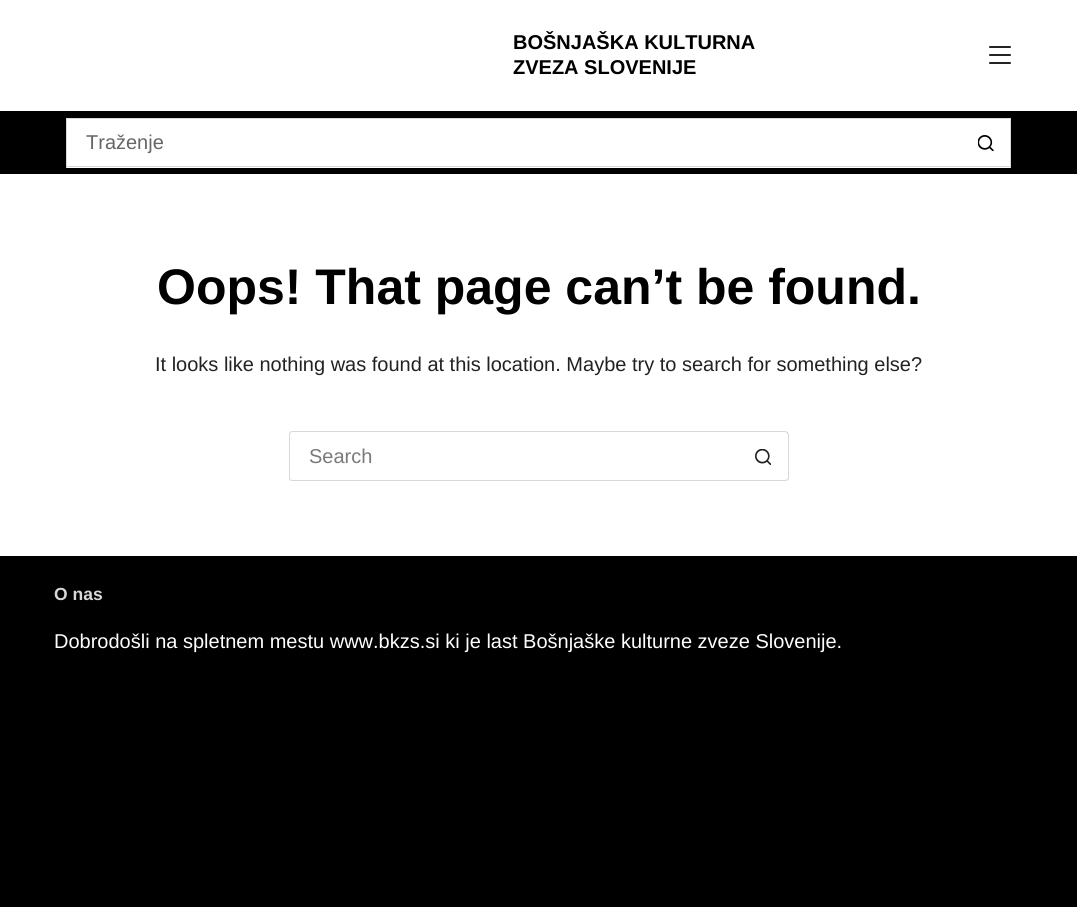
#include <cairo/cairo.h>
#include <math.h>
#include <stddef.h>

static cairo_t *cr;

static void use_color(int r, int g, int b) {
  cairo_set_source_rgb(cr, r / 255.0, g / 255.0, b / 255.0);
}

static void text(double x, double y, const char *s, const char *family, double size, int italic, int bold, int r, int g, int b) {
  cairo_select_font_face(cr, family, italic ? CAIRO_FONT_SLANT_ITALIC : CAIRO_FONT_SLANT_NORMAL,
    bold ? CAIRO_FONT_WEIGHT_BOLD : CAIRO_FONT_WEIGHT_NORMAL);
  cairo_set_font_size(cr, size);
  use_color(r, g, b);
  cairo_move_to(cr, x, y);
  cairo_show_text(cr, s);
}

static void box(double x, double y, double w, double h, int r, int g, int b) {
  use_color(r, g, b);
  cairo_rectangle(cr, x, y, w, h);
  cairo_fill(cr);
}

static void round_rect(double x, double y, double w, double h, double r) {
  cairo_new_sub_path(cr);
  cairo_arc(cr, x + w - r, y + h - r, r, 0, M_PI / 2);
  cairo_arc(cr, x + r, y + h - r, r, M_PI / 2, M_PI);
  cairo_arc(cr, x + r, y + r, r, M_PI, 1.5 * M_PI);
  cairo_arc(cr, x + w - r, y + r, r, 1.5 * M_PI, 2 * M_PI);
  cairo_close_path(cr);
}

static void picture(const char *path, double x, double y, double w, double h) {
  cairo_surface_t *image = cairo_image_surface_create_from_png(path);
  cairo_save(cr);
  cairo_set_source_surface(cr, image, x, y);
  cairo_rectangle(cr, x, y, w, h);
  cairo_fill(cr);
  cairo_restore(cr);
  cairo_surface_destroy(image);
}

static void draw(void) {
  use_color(255, 255, 255);
  cairo_paint(cr);
  use_color(34, 34, 34);
  round_rect(989, 46, 22, 2, 1);
  cairo_fill(cr);
  round_rect(989, 54, 22, 2, 1);
  cairo_fill(cr);
  round_rect(989, 62, 22, 2, 1);
  cairo_fill(cr);
  box(0, 111, 1077, 63, 0, 0, 0);
  box(67, 119, 943, 49, 255, 255, 255);
  box(66, 118, 945, 1, 216, 216, 216);
  box(66, 166, 895, 1, 216, 216, 216);
  box(66, 118, 1, 50, 216, 216, 216);
  box(1010, 118, 1, 50, 216, 216, 216);
  box(961, 166, 50, 1, 216, 216, 216);
  picture("img_01.png", 978, 135, 16, 16);
  cairo_set_fill_rule(cr, CAIRO_FILL_RULE_EVEN_ODD);
  cairo_new_path(cr);
  cairo_move_to(cr, 292, 431);
  cairo_line_to(cr, 739, 431);
  cairo_line_to(cr, 739, 481);
  cairo_line_to(cr, 292, 481);
  cairo_curve_to(cr, 290, 481, 289, 480, 289, 478);
  cairo_line_to(cr, 289, 435);
  cairo_curve_to(cr, 289, 433, 290, 431, 292, 431);
  cairo_close_path(cr);
  cairo_move_to(cr, 292, 432);
  cairo_line_to(cr, 739, 432);
  cairo_line_to(cr, 739, 480);
  cairo_line_to(cr, 292, 480);
  cairo_curve_to(cr, 291, 480, 290, 479, 290, 478);
  cairo_line_to(cr, 290, 435);
  cairo_curve_to(cr, 290, 434, 291, 432, 292, 432);
  cairo_close_path(cr);
  cairo_fill(cr);
  cairo_new_path(cr);
  cairo_move_to(cr, 739, 431);
  cairo_line_to(cr, 785, 431);
  cairo_curve_to(cr, 787, 431, 789, 433, 789, 435);
  cairo_line_to(cr, 789, 478);
  cairo_curve_to(cr, 789, 480, 787, 481, 785, 481);
  cairo_line_to(cr, 739, 481);
  cairo_close_path(cr);
  cairo_move_to(cr, 739, 432);
  cairo_line_to(cr, 785, 432);
  cairo_curve_to(cr, 786, 432, 788, 434, 788, 435);
  cairo_line_to(cr, 788, 478);
  cairo_curve_to(cr, 788, 479, 786, 480, 785, 480);
  cairo_line_to(cr, 739, 480);
  cairo_close_path(cr);
  cairo_fill(cr);
  picture("img_02.png", 755, 449, 16, 16);
  cairo_new_path(cr);
  cairo_move_to(cr, 753, 456.5);
  cairo_curve_to(cr, 753, 451, 757.5, 447, 762.5, 447);
  use_color(255, 255, 255);
  cairo_set_line_width(cr, 1.9);
  cairo_set_line_cap(cr, CAIRO_LINE_CAP_ROUND);
  cairo_stroke(cr);
  box(0, 556, 1077, 351, 0, 0, 0);
  text(513, 49, "BOŠNJAŠKA KULTURNA", "Liberation Sans", 20, 0, 1, 0, 0, 0);
  text(513, 74, "ZVEZA SLOVENIJE", "Liberation Sans", 20, 0, 1, 0, 0, 0);
  text(86, 149, "Traženje", "Liberation Sans", 20, 0, 0, 102, 102, 102);
  text(157, 304, "Oops! That page can’t be found.", "Liberation Sans", 50, 0, 1, 0, 0, 0);
  text(155, 371, "It looks like nothing was found at this location. Maybe try to search for something else?", "Liberation Sans", 20, 0, 0, 34, 34, 34);
  text(309, 463, "Search", "Liberation Sans", 20, 0, 0, 122, 122, 122);
  text(54, 600, "O nas", "Liberation Sans", 17.5, 0, 1, 216, 216, 216);
  text(54, 648, "Dobrodošli na spletnem mestu www.bkzs.si ki je last Bošnjaške kulturne zveze Slovenije.", "Liberation Sans", 20, 0, 0, 255, 254, 254);
}

int main(void) {
  cairo_surface_t *surface = cairo_image_surface_create(CAIRO_FORMAT_RGB24, 1077, 907);
  cr = cairo_create(surface);
  cairo_font_options_t *options = cairo_font_options_create();
  cairo_font_options_set_hint_metrics(options, CAIRO_HINT_METRICS_OFF);
  cairo_font_options_set_hint_style(options, CAIRO_HINT_STYLE_NONE);
  cairo_set_font_options(cr, options);
  cairo_set_miter_limit(cr, 4);
  draw();
  cairo_surface_write_to_png(surface, "out.png");
  cairo_font_options_destroy(options);
  cairo_destroy(cr);
  cairo_surface_destroy(surface);
  return 0;
}
